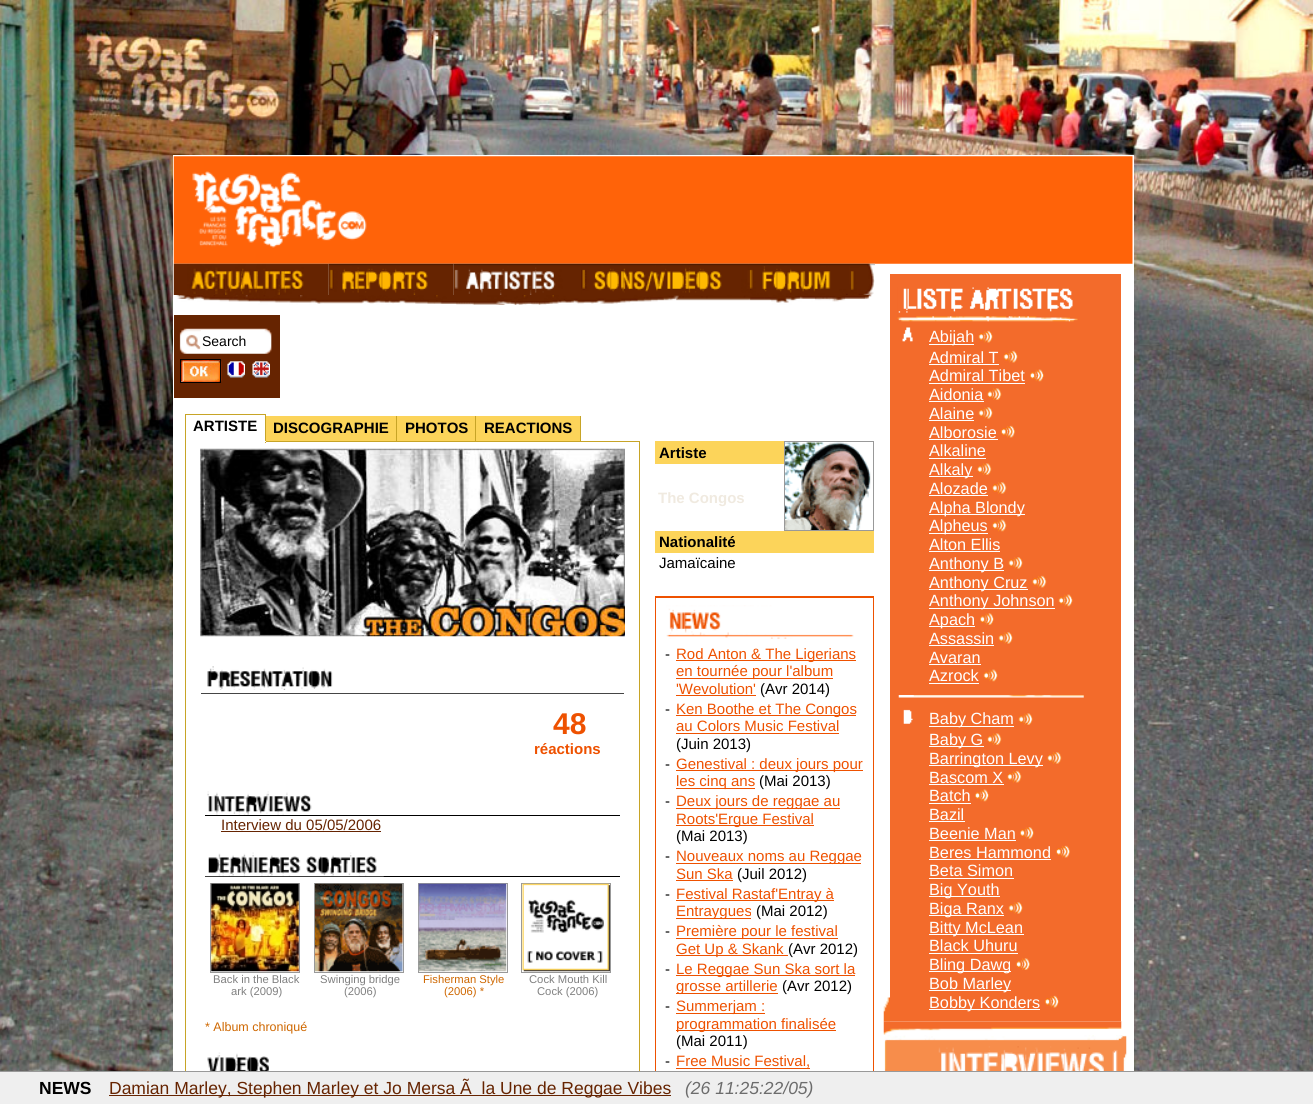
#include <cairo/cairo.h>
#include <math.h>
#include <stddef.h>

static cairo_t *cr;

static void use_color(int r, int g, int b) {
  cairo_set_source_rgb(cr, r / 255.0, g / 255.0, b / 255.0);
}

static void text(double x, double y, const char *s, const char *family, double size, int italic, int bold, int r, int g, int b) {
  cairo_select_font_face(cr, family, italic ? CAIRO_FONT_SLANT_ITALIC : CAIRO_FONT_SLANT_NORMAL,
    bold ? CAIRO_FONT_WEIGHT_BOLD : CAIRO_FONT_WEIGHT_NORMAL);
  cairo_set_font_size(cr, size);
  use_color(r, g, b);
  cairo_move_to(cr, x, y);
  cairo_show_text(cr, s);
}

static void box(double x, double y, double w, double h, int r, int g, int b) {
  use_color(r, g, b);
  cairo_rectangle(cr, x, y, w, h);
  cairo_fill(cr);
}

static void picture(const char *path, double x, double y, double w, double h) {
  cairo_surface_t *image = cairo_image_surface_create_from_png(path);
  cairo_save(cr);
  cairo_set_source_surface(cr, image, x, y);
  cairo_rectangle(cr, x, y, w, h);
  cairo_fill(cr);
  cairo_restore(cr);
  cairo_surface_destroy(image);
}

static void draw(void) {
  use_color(255, 255, 255);
  cairo_paint(cr);
  picture("img_01.png", 0, 0, 1313, 1071);
  box(173, 155, 961, 916, 255, 255, 255);
  picture("img_02.png", 173, 156, 960, 108);
  picture("img_03.png", 173, 263, 156, 32);
  picture("img_04.png", 328, 263, 126, 32);
  box(581, 264, 168, 31, 102, 36, 1);
  picture("img_05.png", 453, 263, 129, 32);
  picture("img_06.png", 581, 263, 168, 30);
  picture("img_07.png", 748, 263, 102, 32);
  picture("img_08.png", 850, 263, 25, 32);
  picture("img_09.png", 176, 295, 696, 10);
  box(174, 315, 106, 83, 102, 36, 1);
  picture("img_10.png", 179, 328, 93, 26);
  box(201, 330, 63, 2, 255, 255, 255);
  picture("img_11.png", 181, 360, 41, 23);
  cairo_rectangle(cr, 180.5, 359.5, 40, 23);
  use_color(0, 0, 0);
  cairo_set_line_width(cr, 1);
  cairo_stroke(cr);
  picture("img_12.png", 227, 361, 18, 17);
  picture("img_13.png", 252, 361, 18, 17);
  box(266, 416, 209, 25, 252, 212, 90);
  box(396, 416, 1, 27, 199, 164, 39);
  box(475, 416, 1, 27, 199, 164, 39);
  box(580, 416, 1, 27, 199, 164, 39);
  box(396, 442, 185, 1, 255, 255, 255);
  cairo_rectangle(cr, 185.5, 441.5, 454, 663);
  use_color(199, 164, 39);
  cairo_stroke(cr);
  box(186, 441, 79, 1, 255, 255, 255);
  box(185, 414, 81, 1, 199, 164, 39);
  box(265, 414, 1, 29, 199, 164, 39);
  box(185, 441, 81, 1, 255, 255, 255);
  box(185, 414, 1, 29, 199, 164, 39);
  box(476, 416, 104, 25, 252, 212, 90);
  picture("img_14.png", 200, 448, 425, 189);
  box(201, 693, 423, 1, 69, 69, 69);
  picture("img_15.png", 207, 666, 126, 24);
  picture("img_16.png", 207, 791, 105, 24);
  box(205, 815, 415, 1, 0, 0, 0);
  box(221, 831, 160, 1, 102, 36, 1);
  box(205, 876, 415, 1, 0, 0, 0);
  picture("img_17.png", 205, 852, 179, 25);
  cairo_rectangle(cr, 210.5, 883.5, 89, 89);
  use_color(153, 153, 153);
  cairo_stroke(cr);
  picture("img_18.png", 211, 883, 88, 89);
  cairo_rectangle(cr, 314.5, 883.5, 89, 89);
  cairo_stroke(cr);
  picture("img_19.png", 315, 883, 88, 89);
  cairo_rectangle(cr, 418.5, 883.5, 89, 89);
  cairo_stroke(cr);
  picture("img_20.png", 418, 883, 89, 89);
  cairo_rectangle(cr, 521.5, 883.5, 89, 89);
  cairo_stroke(cr);
  picture("img_21.png", 522, 883, 88, 89);
  picture("img_22.png", 205, 1052, 125, 19);
  box(655, 441, 129, 23, 252, 212, 90);
  cairo_rectangle(cr, 784.5, 441.5, 89, 89);
  use_color(153, 153, 153);
  cairo_stroke(cr);
  picture("img_23.png", 785, 442, 86, 88);
  box(655, 531, 219, 22, 252, 212, 90);
  box(655, 596, 219, 475, 238, 81, 0);
  box(656, 598, 217, 473, 255, 255, 255);
  picture("img_24.png", 666, 605, 188, 34);
  box(676, 660, 180, 1, 238, 81, 0);
  box(676, 678, 157, 1, 238, 81, 0);
  box(676, 695, 80, 1, 238, 81, 0);
  box(676, 715, 180, 1, 238, 81, 0);
  box(676, 733, 163, 1, 238, 81, 0);
  box(676, 770, 187, 1, 238, 81, 0);
  box(676, 788, 79, 1, 238, 81, 0);
  box(676, 808, 164, 1, 238, 81, 0);
  box(676, 825, 138, 1, 238, 81, 0);
  box(676, 863, 185, 1, 238, 81, 0);
  box(676, 880, 57, 1, 238, 81, 0);
  box(676, 900, 158, 1, 238, 81, 0);
  box(676, 918, 75, 1, 238, 81, 0);
  box(676, 938, 162, 1, 238, 81, 0);
  box(676, 955, 112, 1, 238, 81, 0);
  box(676, 975, 179, 1, 238, 81, 0);
  box(676, 993, 102, 1, 238, 81, 0);
  box(676, 1013, 89, 1, 238, 81, 0);
  box(676, 1030, 160, 1, 238, 81, 0);
  box(676, 1068, 134, 1, 238, 81, 0);
  picture("img_25.png", 883, 997, 7, 25);
  box(890, 274, 231, 747, 243, 107, 43);
  picture("img_26.png", 897, 287, 181, 35);
  picture("img_27.png", 902, 327, 11, 15);
  box(929, 344, 45, 1, 255, 255, 255);
  picture("img_28.png", 978, 330, 15, 13);
  box(929, 364, 70, 1, 255, 255, 255);
  picture("img_28.png", 1003, 350, 15, 13);
  box(929, 383, 96, 1, 255, 255, 255);
  picture("img_29.png", 1030, 369, 14, 13);
  box(929, 401, 55, 1, 255, 255, 255);
  picture("img_30.png", 987, 388, 15, 12);
  box(929, 420, 45, 1, 255, 255, 255);
  picture("img_31.png", 978, 407, 15, 12);
  box(929, 439, 69, 1, 255, 255, 255);
  picture("img_32.png", 1001, 425, 14, 13);
  box(929, 458, 57, 1, 255, 255, 255);
  box(929, 476, 44, 1, 255, 255, 255);
  picture("img_30.png", 977, 463, 15, 12);
  box(929, 495, 59, 1, 255, 255, 255);
  picture("img_33.png", 992, 482, 15, 12);
  box(929, 514, 96, 1, 255, 255, 255);
  box(929, 533, 59, 1, 255, 255, 255);
  picture("img_34.png", 992, 519, 15, 13);
  box(929, 551, 71, 1, 255, 255, 255);
  box(929, 570, 75, 1, 255, 255, 255);
  picture("img_31.png", 1008, 557, 15, 12);
  box(929, 589, 99, 1, 255, 255, 255);
  picture("img_35.png", 1032, 575, 15, 13);
  box(929, 608, 126, 1, 255, 255, 255);
  picture("img_36.png", 1058, 594, 15, 13);
  box(929, 626, 46, 1, 255, 255, 255);
  picture("img_37.png", 980, 613, 14, 12);
  box(929, 645, 65, 1, 255, 255, 255);
  picture("img_31.png", 998, 632, 15, 12);
  box(929, 664, 52, 1, 255, 255, 255);
  box(929, 683, 50, 1, 255, 255, 255);
  picture("img_36.png", 983, 669, 15, 13);
  picture("img_38.png", 898, 695, 186, 3);
  picture("img_39.png", 903, 709, 10, 15);
  box(929, 726, 85, 1, 255, 255, 255);
  picture("img_40.png", 1018, 713, 15, 12);
  box(929, 746, 55, 1, 255, 255, 255);
  picture("img_30.png", 987, 733, 15, 12);
  box(929, 765, 114, 1, 255, 255, 255);
  picture("img_33.png", 1047, 752, 15, 12);
  box(929, 784, 75, 1, 255, 255, 255);
  picture("img_35.png", 1007, 770, 15, 13);
  box(929, 803, 42, 1, 255, 255, 255);
  picture("img_29.png", 975, 789, 14, 13);
  box(929, 821, 36, 1, 255, 255, 255);
  box(929, 840, 87, 1, 255, 255, 255);
  picture("img_41.png", 1020, 827, 14, 12);
  box(929, 859, 122, 1, 255, 255, 255);
  picture("img_32.png", 1056, 845, 14, 13);
  box(929, 878, 85, 1, 255, 255, 255);
  box(929, 896, 71, 1, 255, 255, 255);
  box(929, 915, 75, 1, 255, 255, 255);
  picture("img_31.png", 1008, 902, 15, 12);
  box(929, 934, 95, 1, 255, 255, 255);
  box(929, 953, 89, 1, 255, 255, 255);
  box(929, 971, 82, 1, 255, 255, 255);
  picture("img_42.png", 1016, 958, 14, 12);
  box(929, 990, 82, 1, 255, 255, 255);
  box(929, 1009, 111, 1, 255, 255, 255);
  picture("img_43.png", 1045, 995, 14, 13);
  picture("img_44.png", 883, 1021, 239, 14);
  picture("img_45.png", 884, 1035, 243, 36);
  use_color(239, 239, 239);
  cairo_rectangle(cr, -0.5, 1071.5, 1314, 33);
  cairo_fill_preserve(cr);
  use_color(153, 153, 153);
  cairo_stroke(cr);
  box(109, 1095, 562, 1, 102, 36, 1);
  text(202, 346, "Search", "Liberation Sans", 14, 0, 0, 0, 0, 0);
  text(193, 431, "ARTISTE", "Liberation Sans", 15, 0, 1, 0, 0, 0);
  text(273, 433, "DISCOGRAPHIE", "Liberation Sans", 15, 0, 1, 0, 0, 0);
  text(405, 433, "PHOTOS", "Liberation Sans", 15, 0, 1, 0, 0, 0);
  text(484, 433, "REACTIONS", "Liberation Sans", 15, 0, 1, 0, 0, 0);
  text(553, 734, "48", "Liberation Sans", 30, 0, 1, 238, 81, 0);
  text(534, 754, "réactions", "Liberation Sans", 15, 0, 1, 238, 81, 0);
  text(221, 830, "Interview du 05/05/2006", "Liberation Sans", 15, 0, 0, 102, 36, 1);
  text(213, 983, "Back in the Black", "Liberation Sans", 11.25, 0, 0, 128, 128, 128);
  text(231, 995, "ark (2009)", "Liberation Sans", 11.25, 0, 0, 128, 128, 128);
  text(320, 983, "Swinging bridge", "Liberation Sans", 11.25, 0, 0, 128, 128, 128);
  text(344, 995, "(2006)", "Liberation Sans", 11.25, 0, 0, 128, 128, 128);
  text(423, 983, "Fisherman Style", "Liberation Sans", 11.25, 0, 0, 206, 103, 0);
  text(444, 995, "(2006) *", "Liberation Sans", 11.25, 0, 0, 206, 103, 0);
  text(529, 983, "Cock Mouth Kill", "Liberation Sans", 11.25, 0, 0, 128, 128, 128);
  text(537, 995, "Cock (2006)", "Liberation Sans", 11.25, 0, 0, 128, 128, 128);
  text(205, 1031, "* Album chroniqué", "Liberation Sans", 12.5, 0, 0, 206, 103, 0);
  text(659, 458, "Artiste", "Liberation Sans", 15, 0, 1, 0, 0, 0);
  text(658, 503, "The Congos", "Liberation Sans", 15, 0, 1, 240, 234, 224);
  text(659, 547, "Nationalité", "Liberation Sans", 15, 0, 1, 0, 0, 0);
  text(659, 568, "Jamaïcaine", "Liberation Sans", 15, 0, 0, 0, 0, 0);
  text(665, 659, "-", "Liberation Sans", 15, 0, 0, 0, 0, 0);
  text(676, 659, "Rod Anton & The Ligerians", "Liberation Sans", 15, 0, 0, 238, 81, 0);
  text(676, 676, "en tournée pour l'album", "Liberation Sans", 15, 0, 0, 238, 81, 0);
  text(676, 694, "'Wevolution'", "Liberation Sans", 15, 0, 0, 238, 81, 0);
  text(760, 694, "(Avr 2014)", "Liberation Sans", 15, 0, 0, 0, 0, 0);
  text(665, 714, "-", "Liberation Sans", 15, 0, 0, 0, 0, 0);
  text(676, 714, "Ken Boothe et The Congos", "Liberation Sans", 15, 0, 0, 238, 81, 0);
  text(676, 731, "au Colors Music Festival", "Liberation Sans", 15, 0, 0, 238, 81, 0);
  text(676, 749, "(Juin 2013)", "Liberation Sans", 15, 0, 0, 0, 0, 0);
  text(665, 769, "-", "Liberation Sans", 15, 0, 0, 0, 0, 0);
  text(676, 769, "Genestival : deux jours pour", "Liberation Sans", 15, 0, 0, 238, 81, 0);
  text(676, 786, "les cinq ans", "Liberation Sans", 15, 0, 0, 238, 81, 0);
  text(759, 786, "(Mai 2013)", "Liberation Sans", 15, 0, 0, 0, 0, 0);
  text(665, 806, "-", "Liberation Sans", 15, 0, 0, 0, 0, 0);
  text(676, 806, "Deux jours de reggae au", "Liberation Sans", 15, 0, 0, 238, 81, 0);
  text(676, 824, "Roots'Ergue Festival", "Liberation Sans", 15, 0, 0, 238, 81, 0);
  text(676, 841, "(Mai 2013)", "Liberation Sans", 15, 0, 0, 0, 0, 0);
  text(665, 861, "-", "Liberation Sans", 15, 0, 0, 0, 0, 0);
  text(676, 861, "Nouveaux noms au Reggae", "Liberation Sans", 15, 0, 0, 238, 81, 0);
  text(676, 879, "Sun Ska", "Liberation Sans", 15, 0, 0, 238, 81, 0);
  text(737, 879, "(Juil 2012)", "Liberation Sans", 15, 0, 0, 0, 0, 0);
  text(665, 899, "-", "Liberation Sans", 15, 0, 0, 0, 0, 0);
  text(676, 899, "Festival Rastaf'Entray à", "Liberation Sans", 15, 0, 0, 238, 81, 0);
  text(676, 916, "Entraygues", "Liberation Sans", 15, 0, 0, 238, 81, 0);
  text(756, 916, "(Mai 2012)", "Liberation Sans", 15, 0, 0, 0, 0, 0);
  text(665, 936, "-", "Liberation Sans", 15, 0, 0, 0, 0, 0);
  text(676, 936, "Première pour le festival", "Liberation Sans", 15, 0, 0, 238, 81, 0);
  text(676, 954, "Get Up & Skank", "Liberation Sans", 15, 0, 0, 238, 81, 0);
  text(788, 954, "(Avr 2012)", "Liberation Sans", 15, 0, 0, 0, 0, 0);
  text(665, 974, "-", "Liberation Sans", 15, 0, 0, 0, 0, 0);
  text(676, 974, "Le Reggae Sun Ska sort la", "Liberation Sans", 15, 0, 0, 238, 81, 0);
  text(676, 991, "grosse artillerie", "Liberation Sans", 15, 0, 0, 238, 81, 0);
  text(782, 991, "(Avr 2012)", "Liberation Sans", 15, 0, 0, 0, 0, 0);
  text(665, 1011, "-", "Liberation Sans", 15, 0, 0, 0, 0, 0);
  text(676, 1011, "Summerjam :", "Liberation Sans", 15, 0, 0, 238, 81, 0);
  text(676, 1029, "programmation finalisée", "Liberation Sans", 15, 0, 0, 238, 81, 0);
  text(676, 1046, "(Mai 2011)", "Liberation Sans", 15, 0, 0, 0, 0, 0);
  text(665, 1066, "-", "Liberation Sans", 15, 0, 0, 0, 0, 0);
  text(676, 1066, "Free Music Festival,", "Liberation Sans", 15, 0, 0, 238, 81, 0);
  text(929, 342, "Abijah", "Liberation Sans", 16.25, 0, 0, 255, 255, 255);
  text(929, 363, "Admiral T", "Liberation Sans", 16.25, 0, 0, 255, 255, 255);
  text(929, 381, "Admiral Tibet", "Liberation Sans", 16.25, 0, 0, 255, 255, 255);
  text(929, 400, "Aidonia", "Liberation Sans", 16.25, 0, 0, 255, 255, 255);
  text(929, 419, "Alaine", "Liberation Sans", 16.25, 0, 0, 255, 255, 255);
  text(929, 438, "Alborosie", "Liberation Sans", 16.25, 0, 0, 255, 255, 255);
  text(929, 456, "Alkaline", "Liberation Sans", 16.25, 0, 0, 255, 255, 255);
  text(929, 475, "Alkaly", "Liberation Sans", 16.25, 0, 0, 255, 255, 255);
  text(929, 494, "Alozade", "Liberation Sans", 16.25, 0, 0, 255, 255, 255);
  text(929, 513, "Alpha Blondy", "Liberation Sans", 16.25, 0, 0, 255, 255, 255);
  text(929, 531, "Alpheus", "Liberation Sans", 16.25, 0, 0, 255, 255, 255);
  text(929, 550, "Alton Ellis", "Liberation Sans", 16.25, 0, 0, 255, 255, 255);
  text(929, 569, "Anthony B", "Liberation Sans", 16.25, 0, 0, 255, 255, 255);
  text(929, 588, "Anthony Cruz", "Liberation Sans", 16.25, 0, 0, 255, 255, 255);
  text(929, 606, "Anthony Johnson", "Liberation Sans", 16.25, 0, 0, 255, 255, 255);
  text(929, 625, "Apach", "Liberation Sans", 16.25, 0, 0, 255, 255, 255);
  text(929, 644, "Assassin", "Liberation Sans", 16.25, 0, 0, 255, 255, 255);
  text(929, 663, "Avaran", "Liberation Sans", 16.25, 0, 0, 255, 255, 255);
  text(929, 681, "Azrock", "Liberation Sans", 16.25, 0, 0, 255, 255, 255);
  text(929, 724, "Baby Cham", "Liberation Sans", 16.25, 0, 0, 255, 255, 255);
  text(929, 745, "Baby G", "Liberation Sans", 16.25, 0, 0, 255, 255, 255);
  text(929, 764, "Barrington Levy", "Liberation Sans", 16.25, 0, 0, 255, 255, 255);
  text(929, 783, "Bascom X", "Liberation Sans", 16.25, 0, 0, 255, 255, 255);
  text(929, 801, "Batch", "Liberation Sans", 16.25, 0, 0, 255, 255, 255);
  text(929, 820, "Bazil", "Liberation Sans", 16.25, 0, 0, 255, 255, 255);
  text(929, 839, "Beenie Man", "Liberation Sans", 16.25, 0, 0, 255, 255, 255);
  text(929, 858, "Beres Hammond", "Liberation Sans", 16.25, 0, 0, 255, 255, 255);
  text(929, 876, "Beta Simon", "Liberation Sans", 16.25, 0, 0, 255, 255, 255);
  text(929, 895, "Big Youth", "Liberation Sans", 16.25, 0, 0, 255, 255, 255);
  text(929, 914, "Biga Ranx", "Liberation Sans", 16.25, 0, 0, 255, 255, 255);
  text(929, 933, "Bitty McLean", "Liberation Sans", 16.25, 0, 0, 255, 255, 255);
  text(929, 951, "Black Uhuru", "Liberation Sans", 16.25, 0, 0, 255, 255, 255);
  text(929, 970, "Bling Dawg", "Liberation Sans", 16.25, 0, 0, 255, 255, 255);
  text(929, 989, "Bob Marley", "Liberation Sans", 16.25, 0, 0, 255, 255, 255);
  text(929, 1008, "Bobby Konders", "Liberation Sans", 16.25, 0, 0, 255, 255, 255);
  text(39, 1094, "NEWS", "Liberation Sans", 17.5, 0, 1, 0, 0, 0);
  text(109, 1094, "Damian Marley, Stephen Marley et Jo Mersa Ã  la Une de Reggae Vibes", "Liberation Sans", 17.5, 0, 0, 102, 36, 1);
  text(685, 1094, "(26 11:25:22/05)", "Liberation Sans", 17.5, 1, 0, 108, 108, 108);
}

int main(void) {
  cairo_surface_t *surface = cairo_image_surface_create(CAIRO_FORMAT_RGB24, 1313, 1104);
  cr = cairo_create(surface);
  cairo_font_options_t *options = cairo_font_options_create();
  cairo_font_options_set_hint_metrics(options, CAIRO_HINT_METRICS_OFF);
  cairo_font_options_set_hint_style(options, CAIRO_HINT_STYLE_NONE);
  cairo_set_font_options(cr, options);
  cairo_set_miter_limit(cr, 4);
  draw();
  cairo_surface_write_to_png(surface, "out.png");
  cairo_font_options_destroy(options);
  cairo_destroy(cr);
  cairo_surface_destroy(surface);
  return 0;
}
